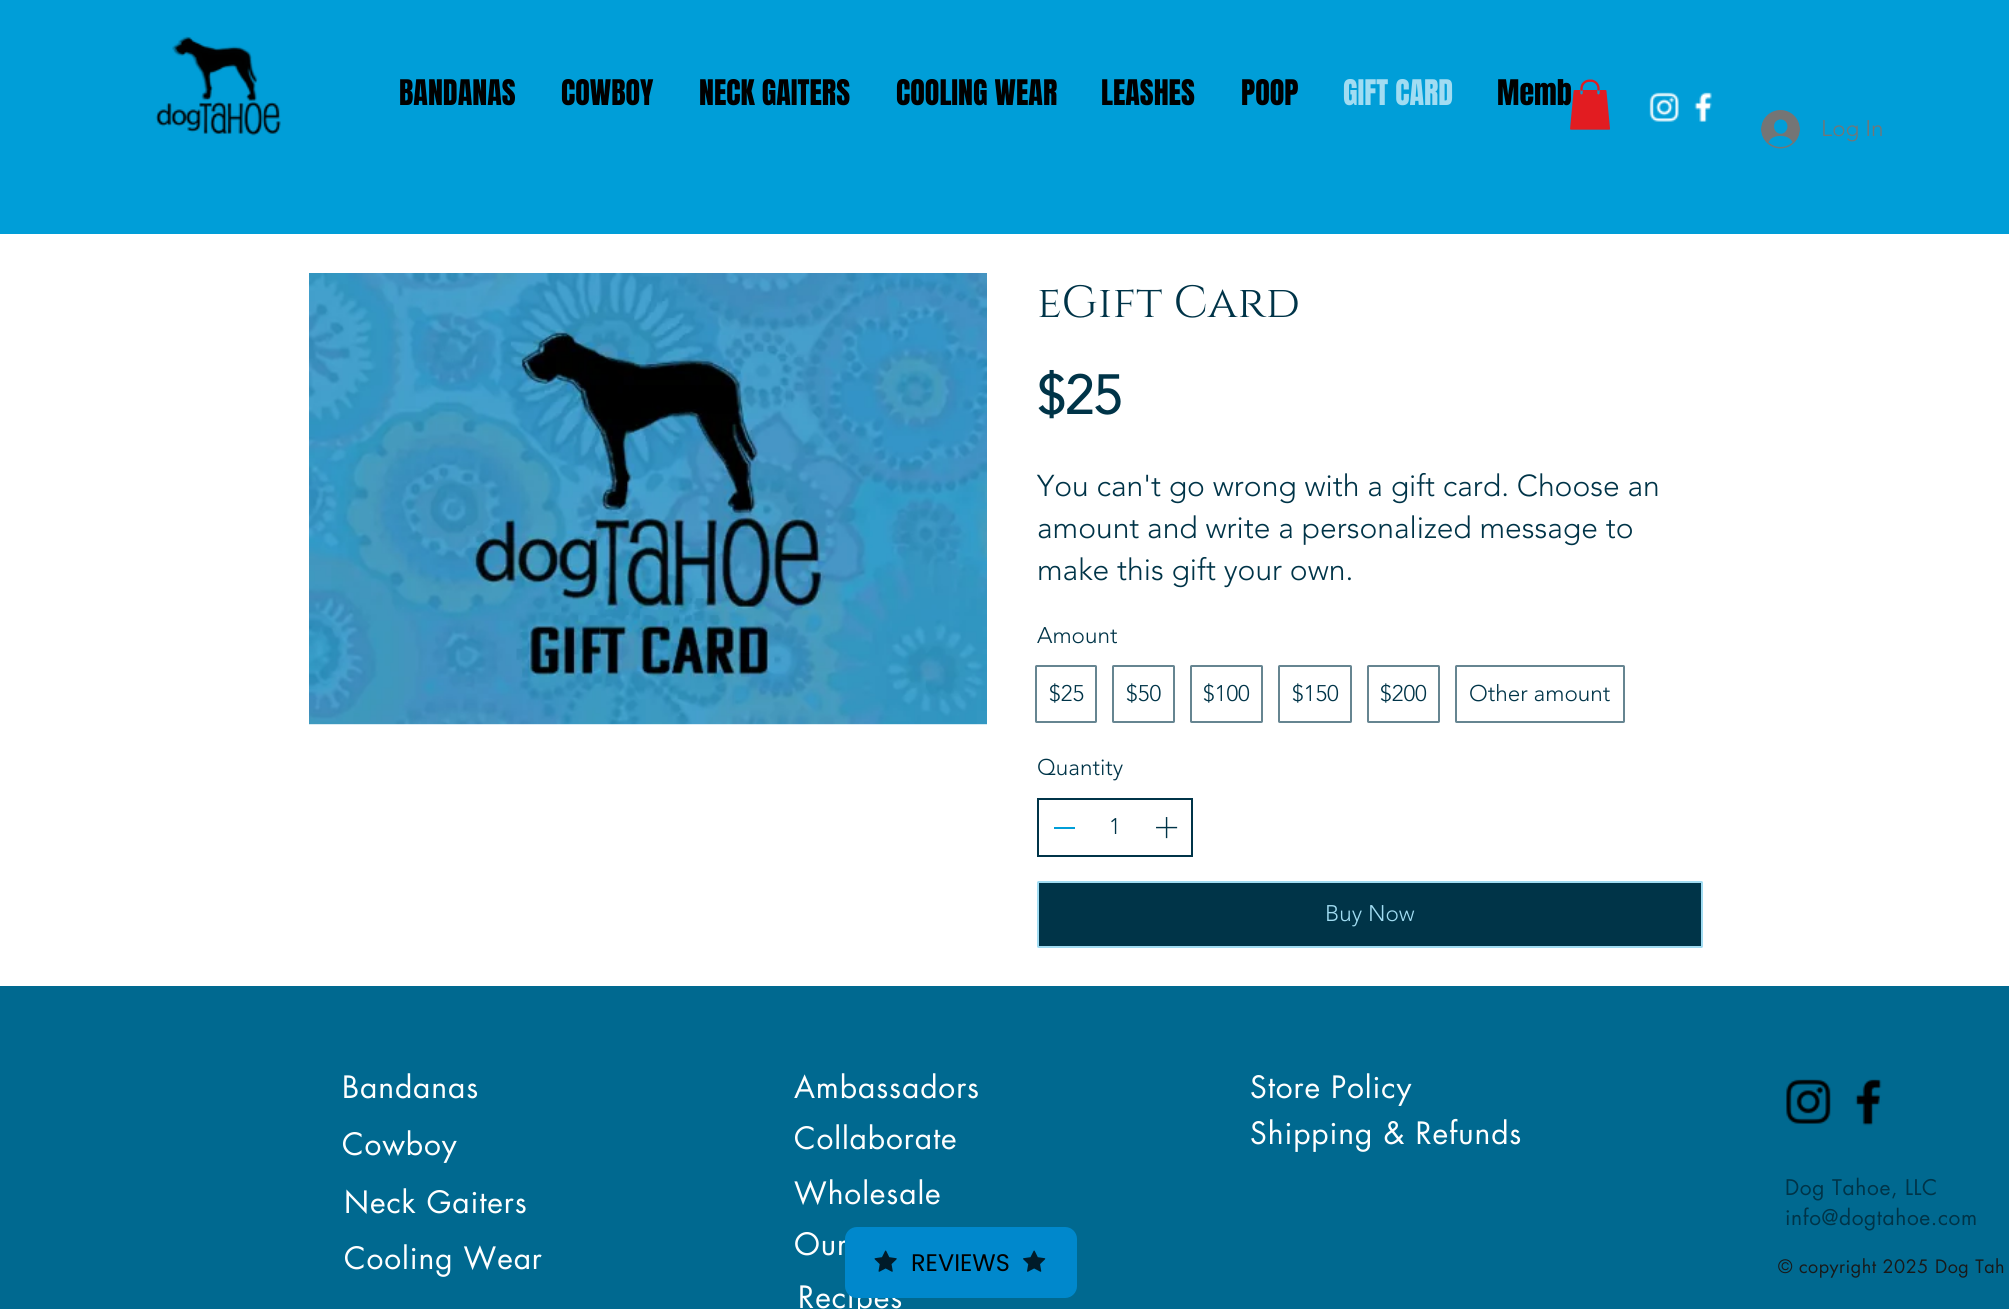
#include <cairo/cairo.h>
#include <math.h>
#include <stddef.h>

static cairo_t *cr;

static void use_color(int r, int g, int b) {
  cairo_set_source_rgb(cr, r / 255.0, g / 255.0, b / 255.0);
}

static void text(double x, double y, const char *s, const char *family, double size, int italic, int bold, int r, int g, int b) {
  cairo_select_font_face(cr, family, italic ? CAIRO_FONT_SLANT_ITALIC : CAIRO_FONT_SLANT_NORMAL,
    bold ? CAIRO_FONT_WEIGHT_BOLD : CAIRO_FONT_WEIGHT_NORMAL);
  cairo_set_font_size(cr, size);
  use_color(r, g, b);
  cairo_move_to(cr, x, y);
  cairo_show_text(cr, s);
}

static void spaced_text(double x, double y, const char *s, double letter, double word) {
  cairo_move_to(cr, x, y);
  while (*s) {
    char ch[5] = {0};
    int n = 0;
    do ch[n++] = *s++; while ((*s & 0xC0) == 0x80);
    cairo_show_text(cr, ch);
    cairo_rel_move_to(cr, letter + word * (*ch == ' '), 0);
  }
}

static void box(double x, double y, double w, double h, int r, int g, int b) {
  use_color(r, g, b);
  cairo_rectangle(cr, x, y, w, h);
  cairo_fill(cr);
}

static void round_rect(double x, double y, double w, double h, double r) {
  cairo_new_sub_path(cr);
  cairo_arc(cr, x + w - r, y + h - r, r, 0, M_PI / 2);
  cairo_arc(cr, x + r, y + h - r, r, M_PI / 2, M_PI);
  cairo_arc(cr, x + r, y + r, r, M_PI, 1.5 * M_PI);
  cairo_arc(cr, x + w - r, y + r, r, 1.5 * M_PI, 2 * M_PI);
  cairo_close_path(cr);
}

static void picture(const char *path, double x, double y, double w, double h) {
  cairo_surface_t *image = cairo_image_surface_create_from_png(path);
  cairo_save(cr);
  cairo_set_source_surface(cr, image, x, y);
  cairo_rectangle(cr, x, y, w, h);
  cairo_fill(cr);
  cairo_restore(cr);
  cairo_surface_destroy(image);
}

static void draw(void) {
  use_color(255, 255, 255);
  cairo_paint(cr);
  box(0, 0, 2009, 234, 0, 158, 216);
  picture("img_01.png", 155, 36, 126, 100);
  picture("img_02.png", 1761, 110, 39, 39);
  picture("img_04.png", 1649, 92, 30, 30);
  picture("img_05.png", 1694, 92, 18, 30);
  picture("img_06.png", 309, 273, 678, 452);
  round_rect(1036, 666, 60, 56, 0.5);
  use_color(102, 133, 145);
  cairo_stroke(cr);
  round_rect(1113, 666, 61, 56, 0.5);
  cairo_stroke(cr);
  round_rect(1191, 666, 71, 56, 0.5);
  cairo_stroke(cr);
  round_rect(1279, 666, 72, 56, 0.5);
  cairo_stroke(cr);
  round_rect(1368, 666, 71, 56, 0.5);
  cairo_stroke(cr);
  round_rect(1456, 666, 168, 56, 0.5);
  cairo_stroke(cr);
  cairo_rectangle(cr, 1038, 799, 154, 57);
  use_color(0, 52, 72);
  cairo_stroke(cr);
  box(1054, 827, 21, 2, 0, 158, 216);
  picture("img_07.png", 1156, 817, 22, 22);
  use_color(0, 52, 72);
  round_rect(1038, 882, 664, 65, 0.5);
  cairo_fill_preserve(cr);
  use_color(161, 220, 242);
  cairo_stroke(cr);
  box(0, 986, 2009, 323, 0, 105, 144);
  picture("img_08.png", 1786, 1079, 45, 45);
  picture("img_09.png", 1855, 1079, 27, 47);
  text(399, 105, "BANDANAS", "Anton", 30, 0, 0, 0, 0, 0);
  text(561, 105, "COWBOY", "Anton", 30, 0, 0, 0, 0, 0);
  text(699, 105, "NECK GAITERS", "Anton", 30, 0, 0, 0, 0, 0);
  text(896, 105, "COOLING WEAR", "Anton", 30, 0, 0, 0, 0, 0);
  text(1101, 105, "LEASHES", "Anton", 30, 0, 0, 0, 0, 0);
  text(1241, 105, "POOP", "Anton", 30, 0, 0, 0, 0, 0);
  text(1343, 105, "GIFT CARD", "Anton", 30, 0, 0, 161, 220, 242);
  text(1497, 105, "Memb", "Anton", 30, 0, 0, 0, 0, 0);
  text(1821, 136, "Log In", "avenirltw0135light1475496 Light", 22.5, 0, 0, 116, 117, 117);
  picture("img_03.png", 1570, 79, 40, 51);
  text(1037, 317, "eGift Card", "Cinzel", 45, 0, 0, 0, 52, 72);
  text(1037, 414, "$25", "avenirltw0135light1475496", 54, 0, 1, 0, 52, 72);
  text(1037, 496, "You can't go wrong with a gift card. Choose an", "avenirltw0135light1475496 Light", 30, 0, 0, 0, 52, 72);
  text(1037, 538, "amount and write a personalized message to", "avenirltw0135light1475496 Light", 30, 0, 0, 0, 52, 72);
  text(1037, 580, "make this gift your own.", "avenirltw0135light1475496 Light", 30, 0, 0, 0, 52, 72);
  text(1037, 643, "Amount", "avenirltw0135light1475496 Light", 22.5, 0, 0, 0, 52, 72);
  text(1049, 701, "$25", "avenirltw0135light1475496 Light", 22.5, 0, 0, 0, 52, 72);
  text(1126, 701, "$50", "avenirltw0135light1475496 Light", 22.5, 0, 0, 0, 52, 72);
  text(1203, 701, "$100", "avenirltw0135light1475496 Light", 22.5, 0, 0, 0, 52, 72);
  text(1292, 701, "$150", "avenirltw0135light1475496 Light", 22.5, 0, 0, 0, 52, 72);
  text(1380, 701, "$200", "avenirltw0135light1475496 Light", 22.5, 0, 0, 0, 52, 72);
  text(1469, 701, "Other amount", "avenirltw0135light1475496 Light", 22.5, 0, 0, 0, 52, 72);
  text(1037, 775, "Quantity", "avenirltw0135light1475496 Light", 22.5, 0, 0, 0, 52, 72);
  text(1109, 834, "1", "avenirltw0135light1475496 Light", 22.5, 0, 0, 0, 52, 72);
  text(1325, 921, "Buy Now", "avenirltw0135light1475496 Light", 22.5, 0, 0, 161, 220, 242);
  cairo_select_font_face(cr, "futura", CAIRO_FONT_SLANT_NORMAL, CAIRO_FONT_WEIGHT_NORMAL);
  cairo_set_font_size(cr, 30);
  use_color(255, 255, 255);
  spaced_text(342, 1098, "Bandanas", 0.9, 0);
  spaced_text(794, 1098, "Ambassadors", 0.9, 0);
  spaced_text(1250, 1098, "Store Policy", 0.9, 0);
  spaced_text(342, 1155, "Cowboy", 0.9, 0);
  spaced_text(794, 1149, "Collaborate", 0.9, 0);
  spaced_text(1250, 1144, "Shipping & Refunds", 0.9, 0);
  spaced_text(344, 1213, "Neck Gaiters", 0.9, 0);
  spaced_text(794, 1204, "Wholesale", 0.9, 0);
  cairo_set_font_size(cr, 21);
  use_color(0, 52, 72);
  spaced_text(1785, 1195, "Dog Tahoe, LLC", 0.6, 0);
  spaced_text(1785, 1225, "info@dogtahoe.com", 0.6, 0);
  cairo_set_font_size(cr, 30);
  use_color(255, 255, 255);
  spaced_text(344, 1269, "Cooling Wear", 0.9, 0);
  spaced_text(794, 1255, "Our", 0.9, 0);
  cairo_set_font_size(cr, 18);
  use_color(24, 25, 25);
  spaced_text(1778, 1273, "© copyright 2025 Dog Tah", 0.5, 0);
  cairo_set_font_size(cr, 30);
  use_color(255, 255, 255);
  spaced_text(798, 1308, "Recipes", 0.9, 0);
  use_color(0, 136, 204);
  round_rect(845, 1227, 232, 71, 12);
  cairo_fill(cr);
  picture("img_10.png", 874, 1250, 23, 22);
  text(911, 1271, "REVIEWS", "Poppins", 24, 0, 0, 0, 0, 0);
  picture("img_11.png", 1023, 1250, 23, 22);
}

int main(void) {
  cairo_surface_t *surface = cairo_image_surface_create(CAIRO_FORMAT_RGB24, 2009, 1309);
  cr = cairo_create(surface);
  cairo_font_options_t *options = cairo_font_options_create();
  cairo_font_options_set_hint_metrics(options, CAIRO_HINT_METRICS_OFF);
  cairo_font_options_set_hint_style(options, CAIRO_HINT_STYLE_NONE);
  cairo_set_font_options(cr, options);
  cairo_set_miter_limit(cr, 4);
  draw();
  cairo_surface_write_to_png(surface, "out.png");
  cairo_font_options_destroy(options);
  cairo_destroy(cr);
  cairo_surface_destroy(surface);
  return 0;
}
